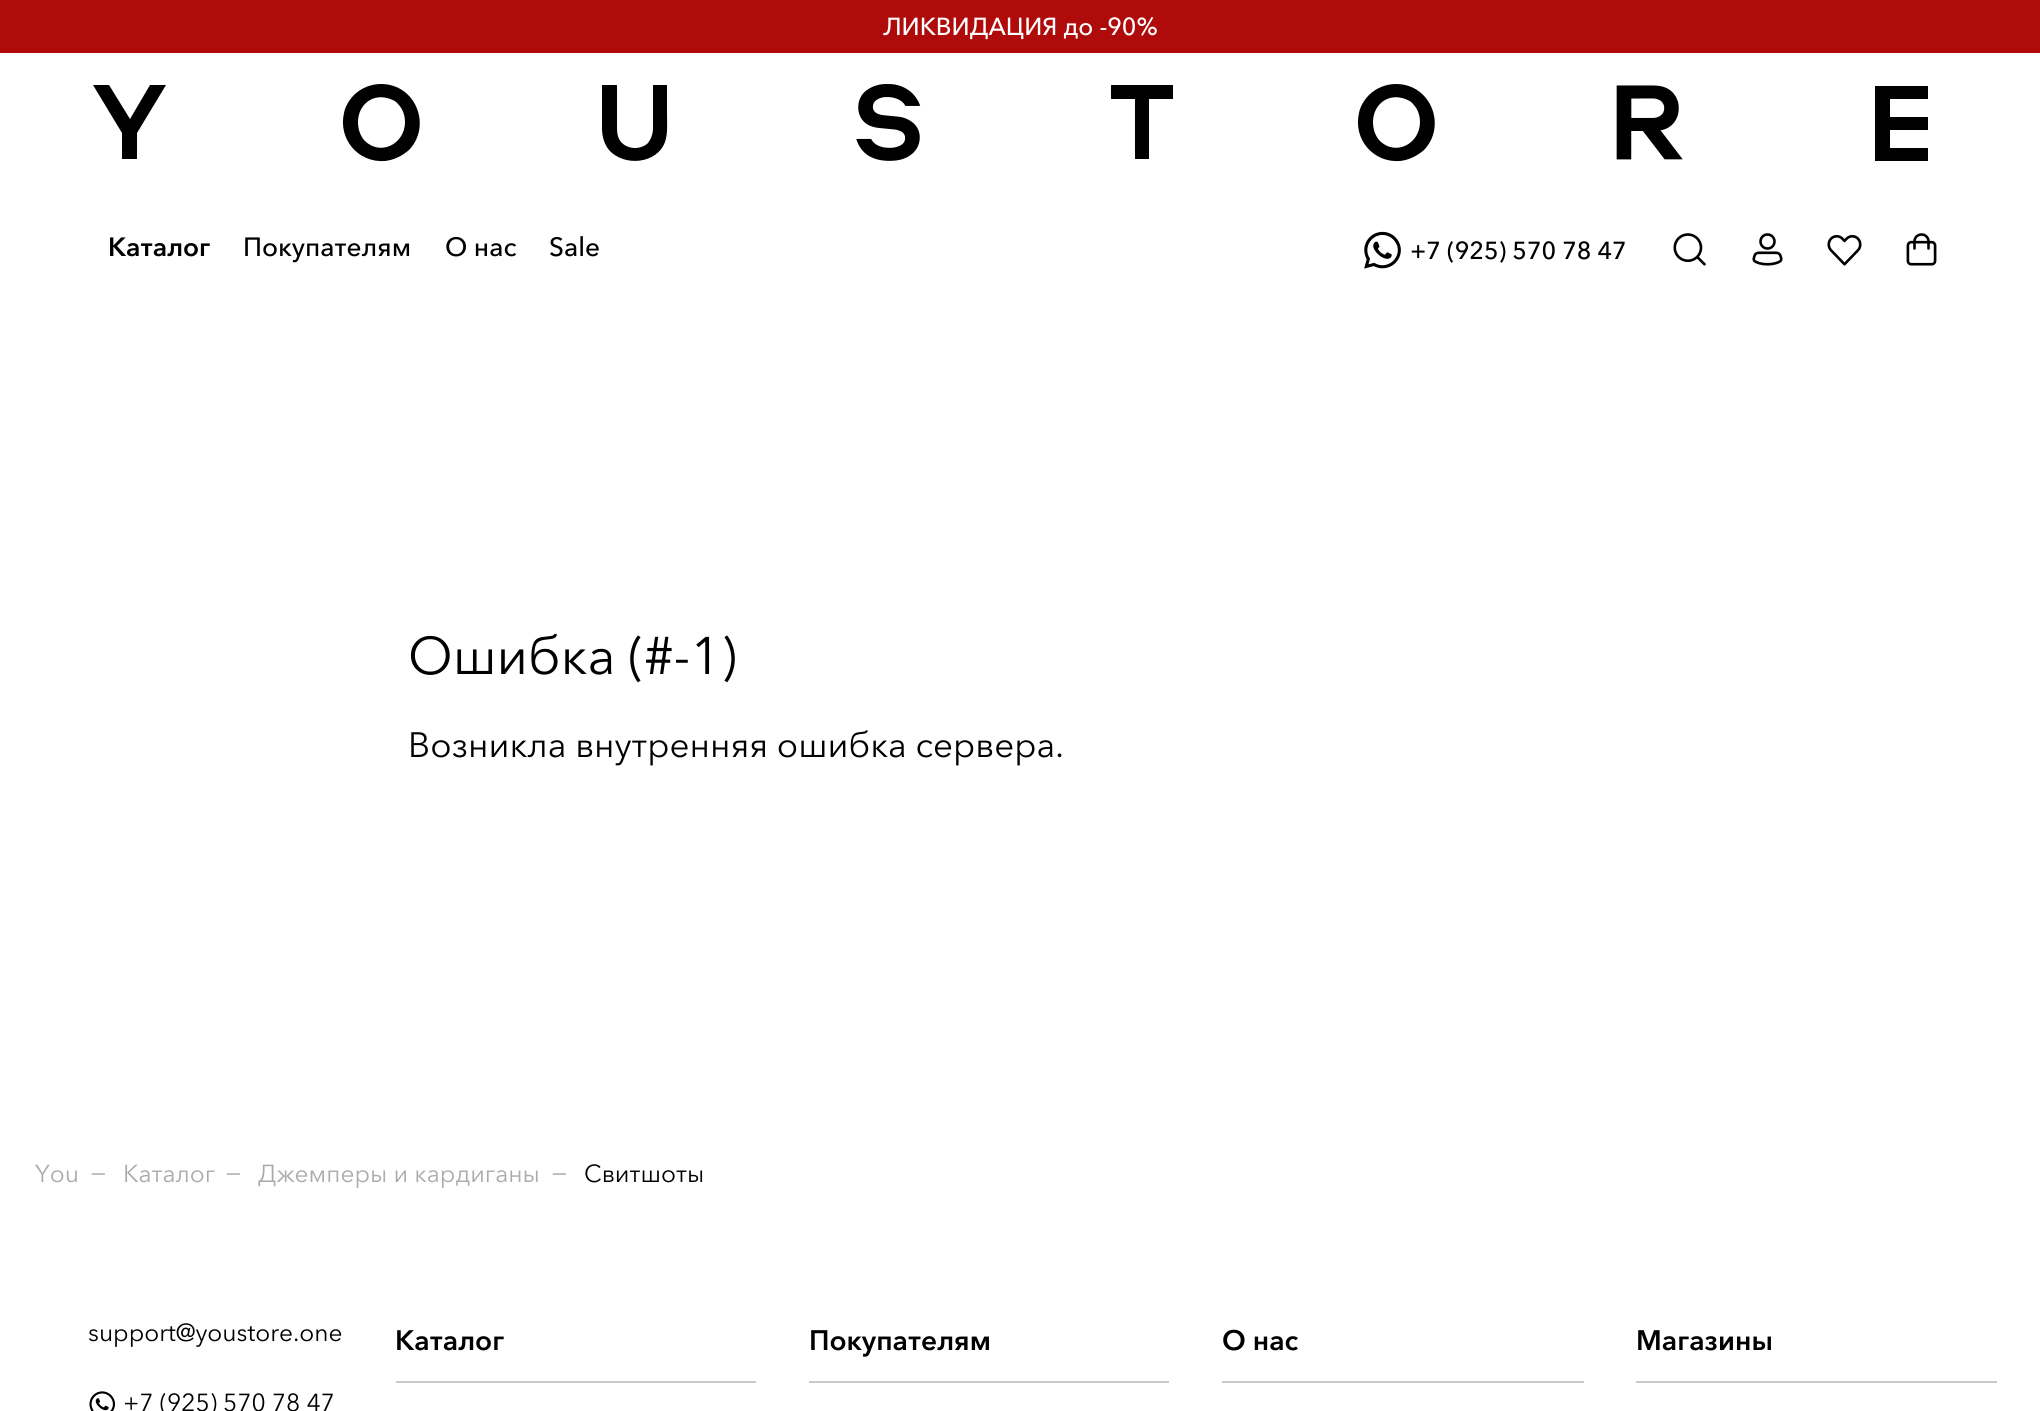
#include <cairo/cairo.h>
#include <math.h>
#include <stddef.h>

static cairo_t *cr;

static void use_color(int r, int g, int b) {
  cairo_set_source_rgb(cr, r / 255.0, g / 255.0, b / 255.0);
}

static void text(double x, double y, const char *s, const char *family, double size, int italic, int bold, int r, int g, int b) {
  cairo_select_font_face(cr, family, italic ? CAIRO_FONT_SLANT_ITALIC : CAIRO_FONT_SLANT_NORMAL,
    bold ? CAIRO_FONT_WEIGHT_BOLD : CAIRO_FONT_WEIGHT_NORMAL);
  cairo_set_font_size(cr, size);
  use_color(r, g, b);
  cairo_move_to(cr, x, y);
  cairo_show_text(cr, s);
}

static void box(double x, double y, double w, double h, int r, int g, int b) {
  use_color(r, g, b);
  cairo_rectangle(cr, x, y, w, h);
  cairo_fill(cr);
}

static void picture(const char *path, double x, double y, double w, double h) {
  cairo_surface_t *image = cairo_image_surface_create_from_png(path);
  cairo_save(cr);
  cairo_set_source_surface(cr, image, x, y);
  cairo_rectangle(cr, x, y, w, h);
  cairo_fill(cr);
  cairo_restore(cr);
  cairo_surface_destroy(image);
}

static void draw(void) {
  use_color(255, 255, 255);
  cairo_paint(cr);
  box(0, 0, 2040, 53, 176, 11, 11);
  use_color(0, 0, 0);
  cairo_new_path(cr);
  cairo_move_to(cr, 130, 119);
  cairo_line_to(cr, 150, 85);
  cairo_line_to(cr, 166, 85);
  cairo_line_to(cr, 137, 133);
  cairo_line_to(cr, 137, 159);
  cairo_line_to(cr, 122, 159);
  cairo_line_to(cr, 122, 133);
  cairo_line_to(cr, 93, 85);
  cairo_line_to(cr, 109, 85);
  cairo_close_path(cr);
  cairo_fill(cr);
  cairo_new_path(cr);
  cairo_move_to(cr, 409, 150);
  cairo_curve_to(cr, 402, 156, 394, 160, 385, 161);
  cairo_curve_to(cr, 358, 163, 338, 139, 344, 113);
  cairo_curve_to(cr, 345, 107, 349, 100, 354, 95);
  cairo_curve_to(cr, 361, 88, 371, 84, 381, 84);
  cairo_curve_to(cr, 416, 84, 432, 126, 409, 150);
  cairo_close_path(cr);
  cairo_move_to(cr, 364, 140);
  cairo_curve_to(cr, 380, 157, 405, 144, 405, 122);
  cairo_curve_to(cr, 405, 116, 403, 109, 398, 104);
  cairo_curve_to(cr, 396, 101, 391, 99, 387, 98);
  cairo_curve_to(cr, 371, 94, 358, 106, 358, 122);
  cairo_curve_to(cr, 358, 129, 360, 135, 364, 140);
  cairo_close_path(cr);
  cairo_fill(cr);
  cairo_new_path(cr);
  cairo_move_to(cr, 602, 128);
  cairo_line_to(cr, 602, 85);
  cairo_line_to(cr, 617, 85);
  cairo_line_to(cr, 617, 128);
  cairo_curve_to(cr, 617, 134, 618, 139, 622, 143);
  cairo_curve_to(cr, 625, 146, 630, 148, 635, 148);
  cairo_curve_to(cr, 640, 148, 645, 146, 648, 143);
  cairo_curve_to(cr, 651, 139, 653, 134, 653, 128);
  cairo_line_to(cr, 653, 85);
  cairo_line_to(cr, 667, 85);
  cairo_line_to(cr, 667, 114);
  cairo_curve_to(cr, 667, 123, 668, 133, 665, 142);
  cairo_curve_to(cr, 657, 164, 624, 167, 609, 150);
  cairo_curve_to(cr, 604, 144, 602, 136, 602, 128);
  cairo_close_path(cr);
  cairo_fill(cr);
  picture("img_01.png", 856, 84, 65, 77);
  cairo_new_path(cr);
  cairo_move_to(cr, 1111, 85);
  cairo_line_to(cr, 1173, 85);
  cairo_line_to(cr, 1173, 99);
  cairo_line_to(cr, 1149, 99);
  cairo_line_to(cr, 1149, 159);
  cairo_line_to(cr, 1135, 159);
  cairo_line_to(cr, 1135, 99);
  cairo_line_to(cr, 1111, 99);
  cairo_close_path(cr);
  cairo_fill(cr);
  cairo_new_path(cr);
  cairo_move_to(cr, 1424, 150);
  cairo_curve_to(cr, 1417, 156, 1409, 160, 1400, 161);
  cairo_curve_to(cr, 1373, 163, 1353, 139, 1359, 113);
  cairo_curve_to(cr, 1360, 107, 1364, 100, 1369, 95);
  cairo_curve_to(cr, 1376, 88, 1386, 84, 1396, 84);
  cairo_curve_to(cr, 1431, 84, 1447, 126, 1424, 150);
  cairo_close_path(cr);
  cairo_move_to(cr, 1379, 140);
  cairo_curve_to(cr, 1395, 157, 1420, 144, 1420, 122);
  cairo_curve_to(cr, 1420, 116, 1418, 109, 1413, 104);
  cairo_curve_to(cr, 1411, 101, 1406, 99, 1402, 98);
  cairo_curve_to(cr, 1386, 94, 1373, 106, 1373, 122);
  cairo_curve_to(cr, 1373, 129, 1375, 135, 1379, 140);
  cairo_close_path(cr);
  cairo_fill(cr);
  picture("img_02.png", 1616, 85, 67, 75);
  cairo_new_path(cr);
  cairo_move_to(cr, 1928, 99);
  cairo_line_to(cr, 1890, 99);
  cairo_line_to(cr, 1890, 117);
  cairo_line_to(cr, 1928, 117);
  cairo_line_to(cr, 1928, 130);
  cairo_line_to(cr, 1890, 130);
  cairo_line_to(cr, 1890, 148);
  cairo_line_to(cr, 1928, 148);
  cairo_line_to(cr, 1928, 161);
  cairo_line_to(cr, 1875, 161);
  cairo_line_to(cr, 1875, 86);
  cairo_line_to(cr, 1928, 86);
  cairo_close_path(cr);
  cairo_fill(cr);
  picture("img_03.png", 1364, 231, 37, 38);
  picture("img_04.png", 1673, 233, 33, 33);
  picture("img_05.png", 1752, 233, 31, 33);
  picture("img_06.png", 1827, 234, 35, 32);
  picture("img_07.png", 1906, 233, 31, 33);
  picture("img_08.png", 89, 1391, 27, 20);
  box(396, 1381, 360, 2, 202, 202, 202);
  box(809, 1381, 360, 2, 202, 202, 202);
  box(1222, 1381, 362, 2, 202, 202, 202);
  box(1636, 1381, 361, 2, 202, 202, 202);
  text(883, 35, "ЛИКВИДАЦИЯ до -90%", "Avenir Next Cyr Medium", 24.5, 0, 0, 255, 255, 255);
  text(108, 256, "Каталог", "Avenir Next Cyr", 26.25, 0, 1, 0, 0, 0);
  text(243, 256, "Покупателям", "Avenir Next Cyr Medium", 26.25, 0, 0, 0, 0, 0);
  text(445, 256, "О нас", "Avenir Next Cyr Medium", 26.25, 0, 0, 0, 0, 0);
  text(549, 256, "Sale", "Avenir Next Cyr Medium", 26.25, 0, 0, 0, 0, 0);
  text(1410, 259, "+7 (925) 570 78 47", "Avenir Next Cyr Medium", 24.5, 0, 0, 0, 0, 0);
  text(408, 674, "Ошибка (#-1)", "Avenir Next Cyr", 52.5, 0, 0, 0, 0, 0);
  text(408, 757, "Возникла внутренняя ошибка сервера.", "Avenir Next Cyr", 35, 0, 0, 0, 0, 0);
  text(35, 1182, "You", "Avenir Next Cyr", 24.5, 0, 0, 171, 171, 171);
  text(91, 1180, "—", "Avenir Next Cyr", 24.5, 0, 0, 164, 164, 164);
  text(123, 1182, "Каталог", "Avenir Next Cyr", 24.5, 0, 0, 171, 171, 171);
  text(226, 1180, "—", "Avenir Next Cyr", 24.5, 0, 0, 164, 164, 164);
  text(258, 1182, "Джемперы и кардиганы", "Avenir Next Cyr", 24.5, 0, 0, 171, 171, 171);
  text(552, 1180, "—", "Avenir Next Cyr", 24.5, 0, 0, 164, 164, 164);
  text(584, 1182, "Свитшоты", "Avenir Next Cyr", 24.5, 0, 0, 0, 0, 0);
  text(88, 1341, "support@youstore.one", "Avenir Next Cyr", 24.5, 0, 0, 0, 0, 0);
  text(123, 1411, "+7 (925) 570 78 47", "Avenir Next Cyr", 24.5, 0, 0, 0, 0, 0);
  text(395, 1350, "Каталог", "Avenir Next Cyr", 28, 0, 1, 0, 0, 0);
  text(809, 1350, "Покупателям", "Avenir Next Cyr", 28, 0, 1, 0, 0, 0);
  text(1222, 1350, "О нас", "Avenir Next Cyr", 28, 0, 1, 0, 0, 0);
  text(1636, 1350, "Магазины", "Avenir Next Cyr", 28, 0, 1, 0, 0, 0);
}

int main(void) {
  cairo_surface_t *surface = cairo_image_surface_create(CAIRO_FORMAT_RGB24, 2040, 1411);
  cr = cairo_create(surface);
  cairo_font_options_t *options = cairo_font_options_create();
  cairo_font_options_set_hint_metrics(options, CAIRO_HINT_METRICS_OFF);
  cairo_font_options_set_hint_style(options, CAIRO_HINT_STYLE_NONE);
  cairo_set_font_options(cr, options);
  cairo_set_miter_limit(cr, 4);
  draw();
  cairo_surface_write_to_png(surface, "out.png");
  cairo_font_options_destroy(options);
  cairo_destroy(cr);
  cairo_surface_destroy(surface);
  return 0;
}
